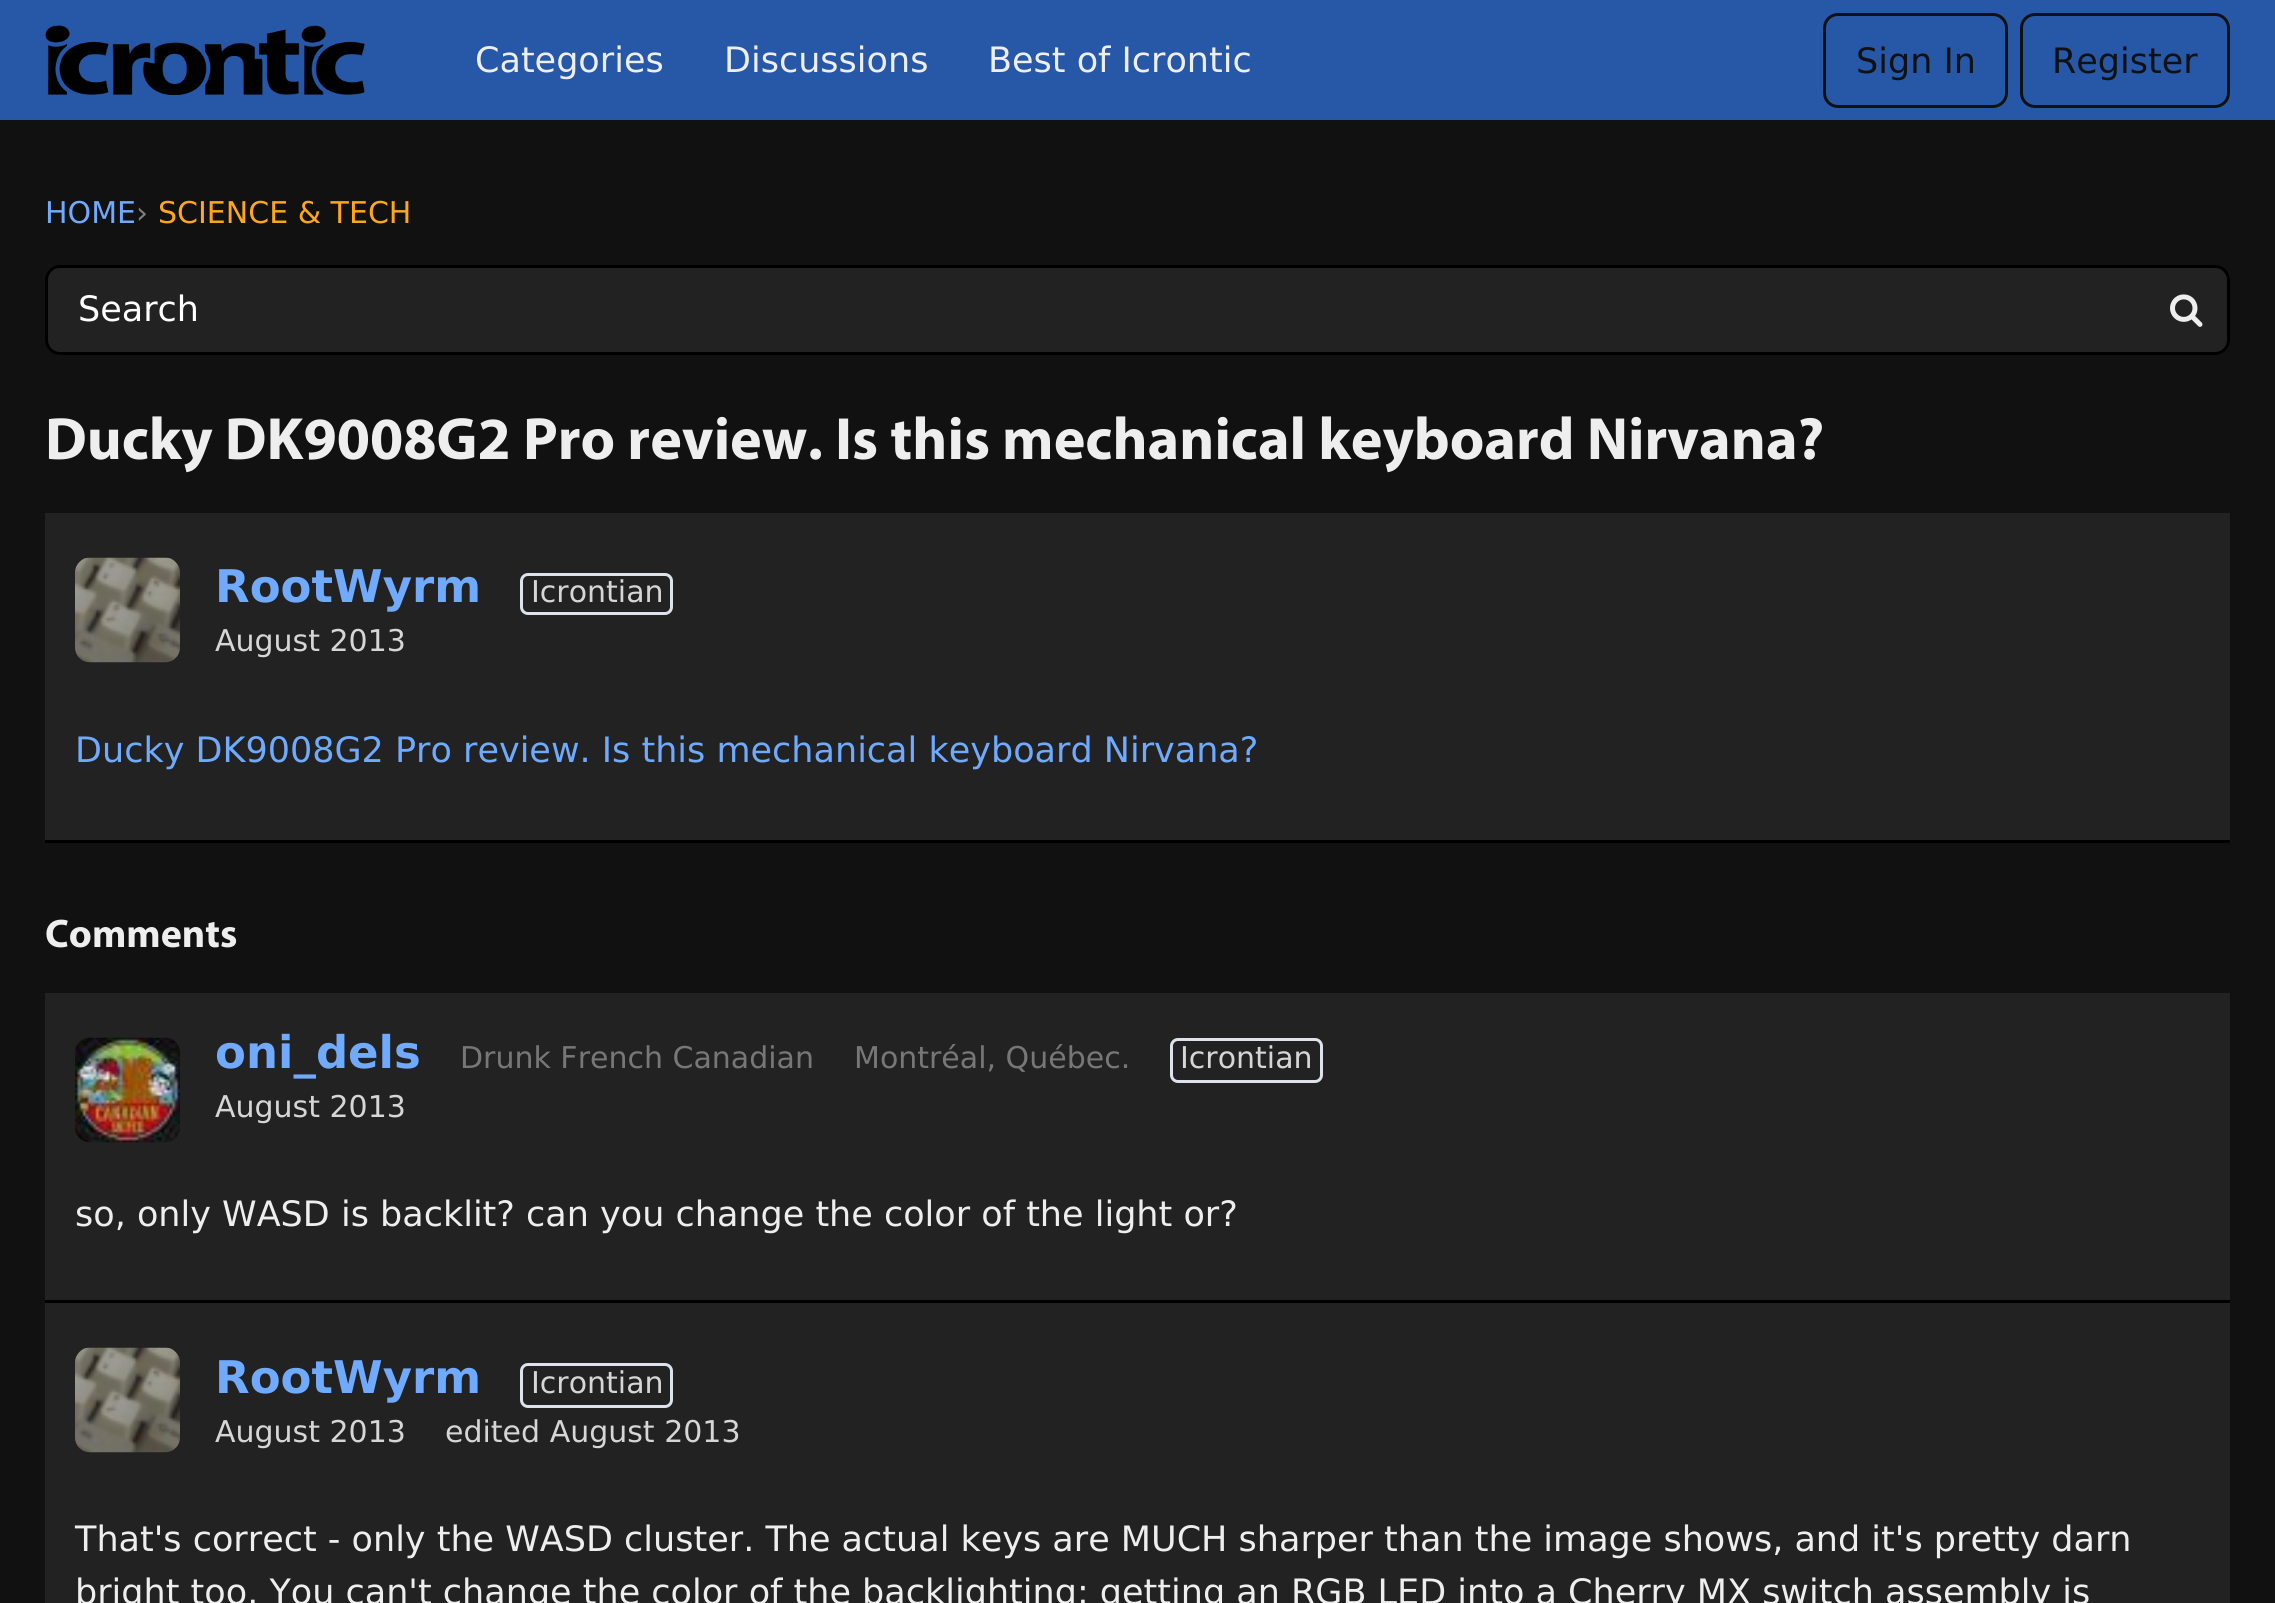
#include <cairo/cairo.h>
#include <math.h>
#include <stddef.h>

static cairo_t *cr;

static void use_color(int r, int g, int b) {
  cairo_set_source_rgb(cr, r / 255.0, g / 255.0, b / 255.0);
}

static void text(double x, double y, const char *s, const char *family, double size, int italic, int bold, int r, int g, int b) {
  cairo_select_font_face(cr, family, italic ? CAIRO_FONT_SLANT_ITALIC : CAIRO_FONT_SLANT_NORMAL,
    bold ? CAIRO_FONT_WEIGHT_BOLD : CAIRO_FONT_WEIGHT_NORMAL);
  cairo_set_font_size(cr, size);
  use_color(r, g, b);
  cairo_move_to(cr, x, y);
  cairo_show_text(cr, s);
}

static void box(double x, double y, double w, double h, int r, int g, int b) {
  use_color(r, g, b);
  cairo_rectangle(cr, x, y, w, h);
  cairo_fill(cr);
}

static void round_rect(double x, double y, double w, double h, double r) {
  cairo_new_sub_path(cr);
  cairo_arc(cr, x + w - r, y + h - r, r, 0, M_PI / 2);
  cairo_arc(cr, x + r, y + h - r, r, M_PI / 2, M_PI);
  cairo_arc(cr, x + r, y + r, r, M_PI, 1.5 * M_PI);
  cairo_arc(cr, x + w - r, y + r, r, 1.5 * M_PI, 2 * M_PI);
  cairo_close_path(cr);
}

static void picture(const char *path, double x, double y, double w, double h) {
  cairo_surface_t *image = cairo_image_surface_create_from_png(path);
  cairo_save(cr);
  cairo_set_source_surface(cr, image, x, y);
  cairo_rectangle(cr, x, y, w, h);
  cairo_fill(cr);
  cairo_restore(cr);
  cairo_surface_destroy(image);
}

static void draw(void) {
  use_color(17, 17, 17);
  cairo_paint(cr);
  box(0, 0, 2275, 120, 39, 88, 168);
  picture("img_01.png", 45, 25, 320, 70);
  round_rect(1824.5, 14.5, 182, 92, 13.5);
  use_color(17, 17, 17);
  cairo_set_line_width(cr, 3);
  cairo_stroke(cr);
  round_rect(2021.5, 14.5, 207, 92, 13.5);
  cairo_stroke(cr);
  use_color(34, 34, 34);
  round_rect(46.5, 266.5, 2182, 87, 13.5);
  cairo_fill_preserve(cr);
  use_color(0, 0, 0);
  cairo_stroke(cr);
  picture("img_02.png", 2170, 294, 33, 33);
  box(45, 513, 2185, 327, 34, 34, 34);
  box(45, 840, 2185, 3, 0, 0, 0);
  picture("img_03.png", 75, 557, 105, 106);
  round_rect(521.5, 574.5, 150, 39, 6.5);
  use_color(221, 226, 235);
  cairo_stroke(cr);
  box(45, 993, 2185, 307, 34, 34, 34);
  picture("img_04.png", 75, 1037, 105, 106);
  round_rect(1171.5, 1039.5, 150, 42, 6.5);
  use_color(221, 226, 235);
  cairo_stroke(cr);
  box(45, 1303, 2185, 300, 34, 34, 34);
  box(45, 1300, 2185, 3, 0, 0, 0);
  picture("img_03.png", 75, 1347, 105, 106);
  round_rect(521.5, 1364.5, 150, 42, 6.5);
  use_color(221, 226, 235);
  cairo_stroke(cr);
  text(475, 72, "Categories", "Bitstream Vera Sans", 35, 0, 0, 238, 238, 238);
  text(724, 72, "Discussions", "Bitstream Vera Sans", 35, 0, 0, 238, 238, 238);
  text(988, 72, "Best of Icrontic", "Bitstream Vera Sans", 35, 0, 0, 238, 238, 238);
  text(1856, 73, "Sign In", "Bitstream Vera Sans", 35, 0, 0, 17, 17, 17);
  text(2052, 73, "Register", "Bitstream Vera Sans", 35, 0, 0, 17, 17, 17);
  text(45, 223, "HOME", "Bitstream Vera Sans", 30, 0, 0, 111, 170, 255);
  text(136, 223, "›", "Bitstream Vera Sans", 30, 0, 0, 128, 128, 128);
  text(158, 223, "SCIENCE & TECH", "Bitstream Vera Sans", 30, 0, 0, 255, 167, 27);
  text(78, 321, "Search", "Bitstream Vera Sans", 35, 0, 0, 255, 255, 255);
  text(45, 459, "Ducky DK9008G2 Pro review. Is this mechanical keyboard Nirvana?", "Myriad", 60, 0, 1, 238, 238, 238);
  text(215, 602, "RootWyrm", "Bitstream Vera Sans", 45, 0, 1, 111, 170, 255);
  text(531, 602, "Icrontian", "Bitstream Vera Sans", 30, 0, 0, 214, 214, 214);
  text(215, 651, "August 2013", "Bitstream Vera Sans", 30, 0, 0, 214, 214, 214);
  text(75, 762, "Ducky DK9008G2 Pro review. Is this mechanical keyboard Nirvana?", "Bitstream Vera Sans", 35, 0, 0, 111, 170, 255);
  text(45, 947, "Comments", "Myriad", 40, 0, 1, 238, 238, 238);
  text(215, 1068, "oni_dels", "Bitstream Vera Sans", 45, 0, 1, 111, 170, 255);
  text(460, 1068, "Drunk French Canadian", "Bitstream Vera Sans", 30, 0, 0, 119, 119, 119);
  text(854, 1068, "Montréal, Québec.", "Bitstream Vera Sans", 30, 0, 0, 119, 119, 119);
  text(1180, 1068, "Icrontian", "Bitstream Vera Sans", 30, 0, 0, 214, 214, 214);
  text(215, 1117, "August 2013", "Bitstream Vera Sans", 30, 0, 0, 214, 214, 214);
  text(75, 1226, "so, only WASD is backlit? can you change the color of the light or?", "Bitstream Vera Sans", 35, 0, 0, 238, 238, 238);
  text(215, 1393, "RootWyrm", "Bitstream Vera Sans", 45, 0, 1, 111, 170, 255);
  text(531, 1393, "Icrontian", "Bitstream Vera Sans", 30, 0, 0, 214, 214, 214);
  text(215, 1442, "August 2013", "Bitstream Vera Sans", 30, 0, 0, 214, 214, 214);
  text(445, 1442, "edited August 2013", "Bitstream Vera Sans", 30, 0, 0, 214, 214, 214);
  text(75, 1551, "That's correct - only the WASD cluster. The actual keys are MUCH sharper than the image shows, and it's pretty darn", "Bitstream Vera Sans", 35, 0, 0, 238, 238, 238);
  text(75, 1604, "bright too. You can't change the color of the backlighting; getting an RGB LED into a Cherry MX switch assembly is", "Bitstream Vera Sans", 35, 0, 0, 238, 238, 238);
}

int main(void) {
  cairo_surface_t *surface = cairo_image_surface_create(CAIRO_FORMAT_RGB24, 2275, 1603);
  cr = cairo_create(surface);
  cairo_font_options_t *options = cairo_font_options_create();
  cairo_font_options_set_hint_metrics(options, CAIRO_HINT_METRICS_OFF);
  cairo_font_options_set_hint_style(options, CAIRO_HINT_STYLE_NONE);
  cairo_set_font_options(cr, options);
  cairo_set_miter_limit(cr, 4);
  draw();
  cairo_surface_write_to_png(surface, "out.png");
  cairo_font_options_destroy(options);
  cairo_destroy(cr);
  cairo_surface_destroy(surface);
  return 0;
}
